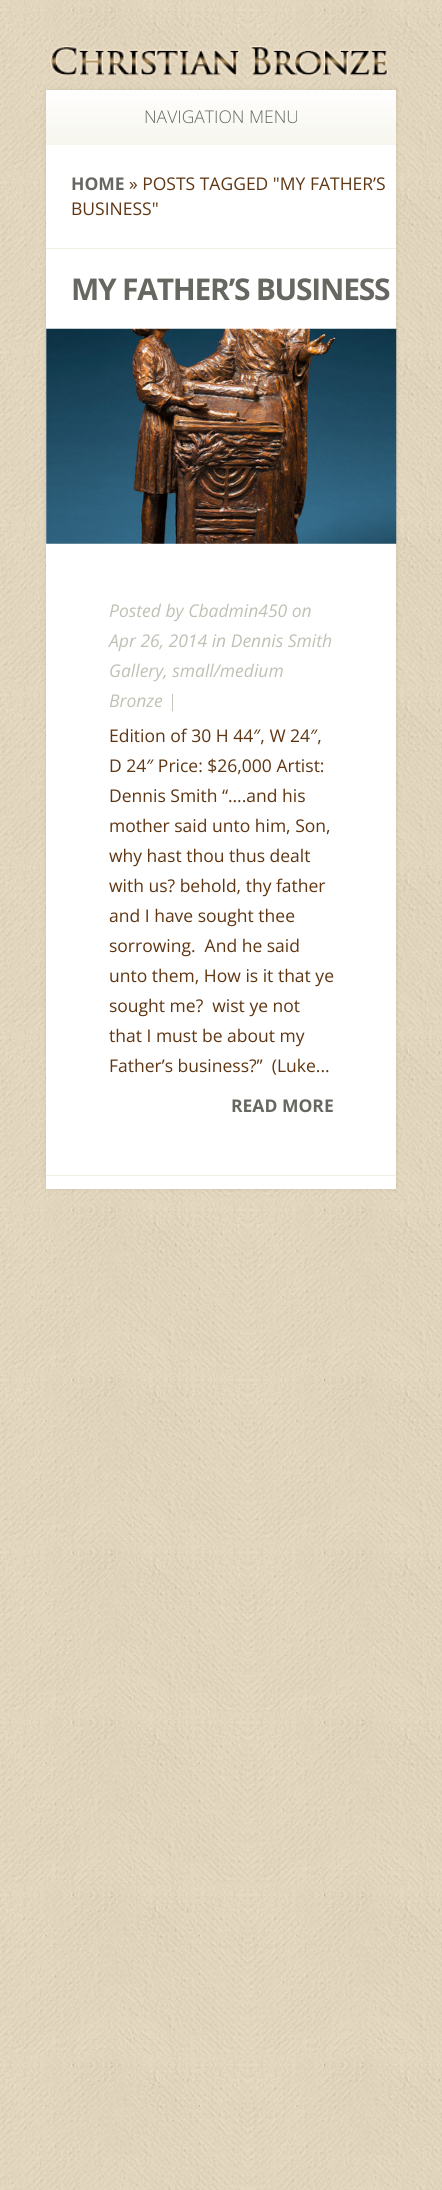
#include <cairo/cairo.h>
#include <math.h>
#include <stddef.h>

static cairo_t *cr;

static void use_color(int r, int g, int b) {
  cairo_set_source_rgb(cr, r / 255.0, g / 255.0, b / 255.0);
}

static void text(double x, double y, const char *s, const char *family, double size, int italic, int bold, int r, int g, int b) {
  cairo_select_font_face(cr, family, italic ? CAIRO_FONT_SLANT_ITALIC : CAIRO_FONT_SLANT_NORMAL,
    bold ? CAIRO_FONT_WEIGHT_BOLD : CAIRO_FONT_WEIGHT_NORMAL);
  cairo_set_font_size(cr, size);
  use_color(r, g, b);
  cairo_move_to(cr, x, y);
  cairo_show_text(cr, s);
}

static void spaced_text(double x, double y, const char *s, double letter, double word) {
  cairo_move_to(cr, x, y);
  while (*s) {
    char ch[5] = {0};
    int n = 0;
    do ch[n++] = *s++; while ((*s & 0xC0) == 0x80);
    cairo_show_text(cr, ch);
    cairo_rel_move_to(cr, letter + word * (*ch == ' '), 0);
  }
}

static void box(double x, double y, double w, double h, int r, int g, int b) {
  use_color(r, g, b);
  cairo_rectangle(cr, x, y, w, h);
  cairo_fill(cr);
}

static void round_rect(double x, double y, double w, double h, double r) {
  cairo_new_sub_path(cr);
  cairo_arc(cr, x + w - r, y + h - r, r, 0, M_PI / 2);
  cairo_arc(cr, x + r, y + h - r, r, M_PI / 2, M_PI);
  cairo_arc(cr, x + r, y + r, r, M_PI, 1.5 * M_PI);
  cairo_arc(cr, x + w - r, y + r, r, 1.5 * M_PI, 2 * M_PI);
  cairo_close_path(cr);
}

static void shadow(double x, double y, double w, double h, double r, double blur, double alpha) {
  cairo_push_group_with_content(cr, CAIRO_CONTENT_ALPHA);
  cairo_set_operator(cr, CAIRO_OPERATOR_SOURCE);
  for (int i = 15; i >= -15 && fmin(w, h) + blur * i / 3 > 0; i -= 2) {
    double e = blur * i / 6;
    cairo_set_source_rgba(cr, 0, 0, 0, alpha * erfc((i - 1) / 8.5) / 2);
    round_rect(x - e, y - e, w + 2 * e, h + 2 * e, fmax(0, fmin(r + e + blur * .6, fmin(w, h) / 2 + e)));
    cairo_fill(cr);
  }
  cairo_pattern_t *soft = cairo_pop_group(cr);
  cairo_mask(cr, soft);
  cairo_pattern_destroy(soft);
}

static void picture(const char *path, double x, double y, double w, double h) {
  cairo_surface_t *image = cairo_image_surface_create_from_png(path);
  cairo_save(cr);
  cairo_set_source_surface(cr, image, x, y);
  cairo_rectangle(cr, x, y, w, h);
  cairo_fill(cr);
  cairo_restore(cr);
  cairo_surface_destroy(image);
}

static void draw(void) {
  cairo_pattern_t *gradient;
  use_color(242, 223, 189);
  cairo_paint(cr);
  picture("img_01.png", 0, 0, 442, 2190);
  picture("img_02.png", 50, 46, 338, 31);
  use_color(0, 0, 0);
  shadow(46, 90, 350, 1099, 0, 2.5, 0.1);
  box(46, 145, 350, 1044, 255, 255, 255);
  gradient = cairo_pattern_create_linear(221, 90, 221, 145);
  cairo_pattern_add_color_stop_rgba(gradient, 0, 1, 0.996, 0.996, 1);
  cairo_pattern_add_color_stop_rgba(gradient, 1, 0.965, 0.965, 0.933, 1);
  cairo_set_source(cr, gradient);
  cairo_pattern_destroy(gradient);
  cairo_rectangle(cr, 46, 90, 350, 55);
  cairo_fill(cr);
  box(46, 248, 350, 1, 240, 240, 229);
  box(46, 1175, 350, 1, 240, 240, 229);
  picture("img_03.png", 46, 328, 351, 216);
  text(144, 123, "NAVIGATION MENU", "Open Sans Light", 17.5, 0, 0, 103, 103, 97);
  text(71, 190, "HOME", "Open Sans", 17.5, 0, 1, 103, 103, 97);
  text(129, 190, "» POSTS TAGGED \"MY FATHER’S", "Open Sans", 17.5, 0, 0, 94, 54, 19);
  text(71, 215, "BUSINESS\"", "Open Sans", 17.5, 0, 0, 94, 54, 19);
  cairo_select_font_face(cr, "Open Sans", CAIRO_FONT_SLANT_NORMAL, CAIRO_FONT_WEIGHT_BOLD);
  cairo_set_font_size(cr, 30);
  use_color(103, 103, 97);
  spaced_text(71, 300, "MY FATHER’S BUSINESS", -1.25, 0);
  text(109, 617, "Posted by Cbadmin450 on", "Open Sans", 17.5, 1, 0, 192, 192, 181);
  text(109, 647, "Apr 26, 2014 in Dennis Smith", "Open Sans", 17.5, 1, 0, 192, 192, 181);
  text(109, 677, "Gallery, small/medium", "Open Sans", 17.5, 1, 0, 192, 192, 181);
  text(109, 707, "Bronze |", "Open Sans", 17.5, 1, 0, 192, 192, 181);
  text(109, 742, "Edition of 30 H 44″, W 24″,", "Open Sans", 17.5, 0, 0, 94, 54, 19);
  text(109, 772, "D 24″ Price: $26,000 Artist:", "Open Sans", 17.5, 0, 0, 94, 54, 19);
  text(109, 802, "Dennis Smith “….and his", "Open Sans", 17.5, 0, 0, 94, 54, 19);
  text(109, 832, "mother said unto him, Son,", "Open Sans", 17.5, 0, 0, 94, 54, 19);
  text(109, 862, "why hast thou thus dealt", "Open Sans", 17.5, 0, 0, 94, 54, 19);
  text(109, 892, "with us? behold, thy father", "Open Sans", 17.5, 0, 0, 94, 54, 19);
  text(109, 922, "and I have sought thee", "Open Sans", 17.5, 0, 0, 94, 54, 19);
  text(109, 952, "sorrowing.  And he said", "Open Sans", 17.5, 0, 0, 94, 54, 19);
  text(109, 982, "unto them, How is it that ye", "Open Sans", 17.5, 0, 0, 94, 54, 19);
  text(109, 1012, "sought me?  wist ye not", "Open Sans", 17.5, 0, 0, 94, 54, 19);
  text(109, 1042, "that I must be about my", "Open Sans", 17.5, 0, 0, 94, 54, 19);
  text(109, 1072, "Father’s business?”  (Luke...", "Open Sans", 17.5, 0, 0, 94, 54, 19);
  text(231, 1112, "READ MORE", "Open Sans", 17.5, 0, 1, 103, 103, 97);
}

int main(void) {
  cairo_surface_t *surface = cairo_image_surface_create(CAIRO_FORMAT_RGB24, 442, 2190);
  cr = cairo_create(surface);
  cairo_font_options_t *options = cairo_font_options_create();
  cairo_font_options_set_hint_metrics(options, CAIRO_HINT_METRICS_OFF);
  cairo_font_options_set_hint_style(options, CAIRO_HINT_STYLE_NONE);
  cairo_set_font_options(cr, options);
  cairo_set_miter_limit(cr, 4);
  draw();
  cairo_surface_write_to_png(surface, "out.png");
  cairo_font_options_destroy(options);
  cairo_destroy(cr);
  cairo_surface_destroy(surface);
  return 0;
}
